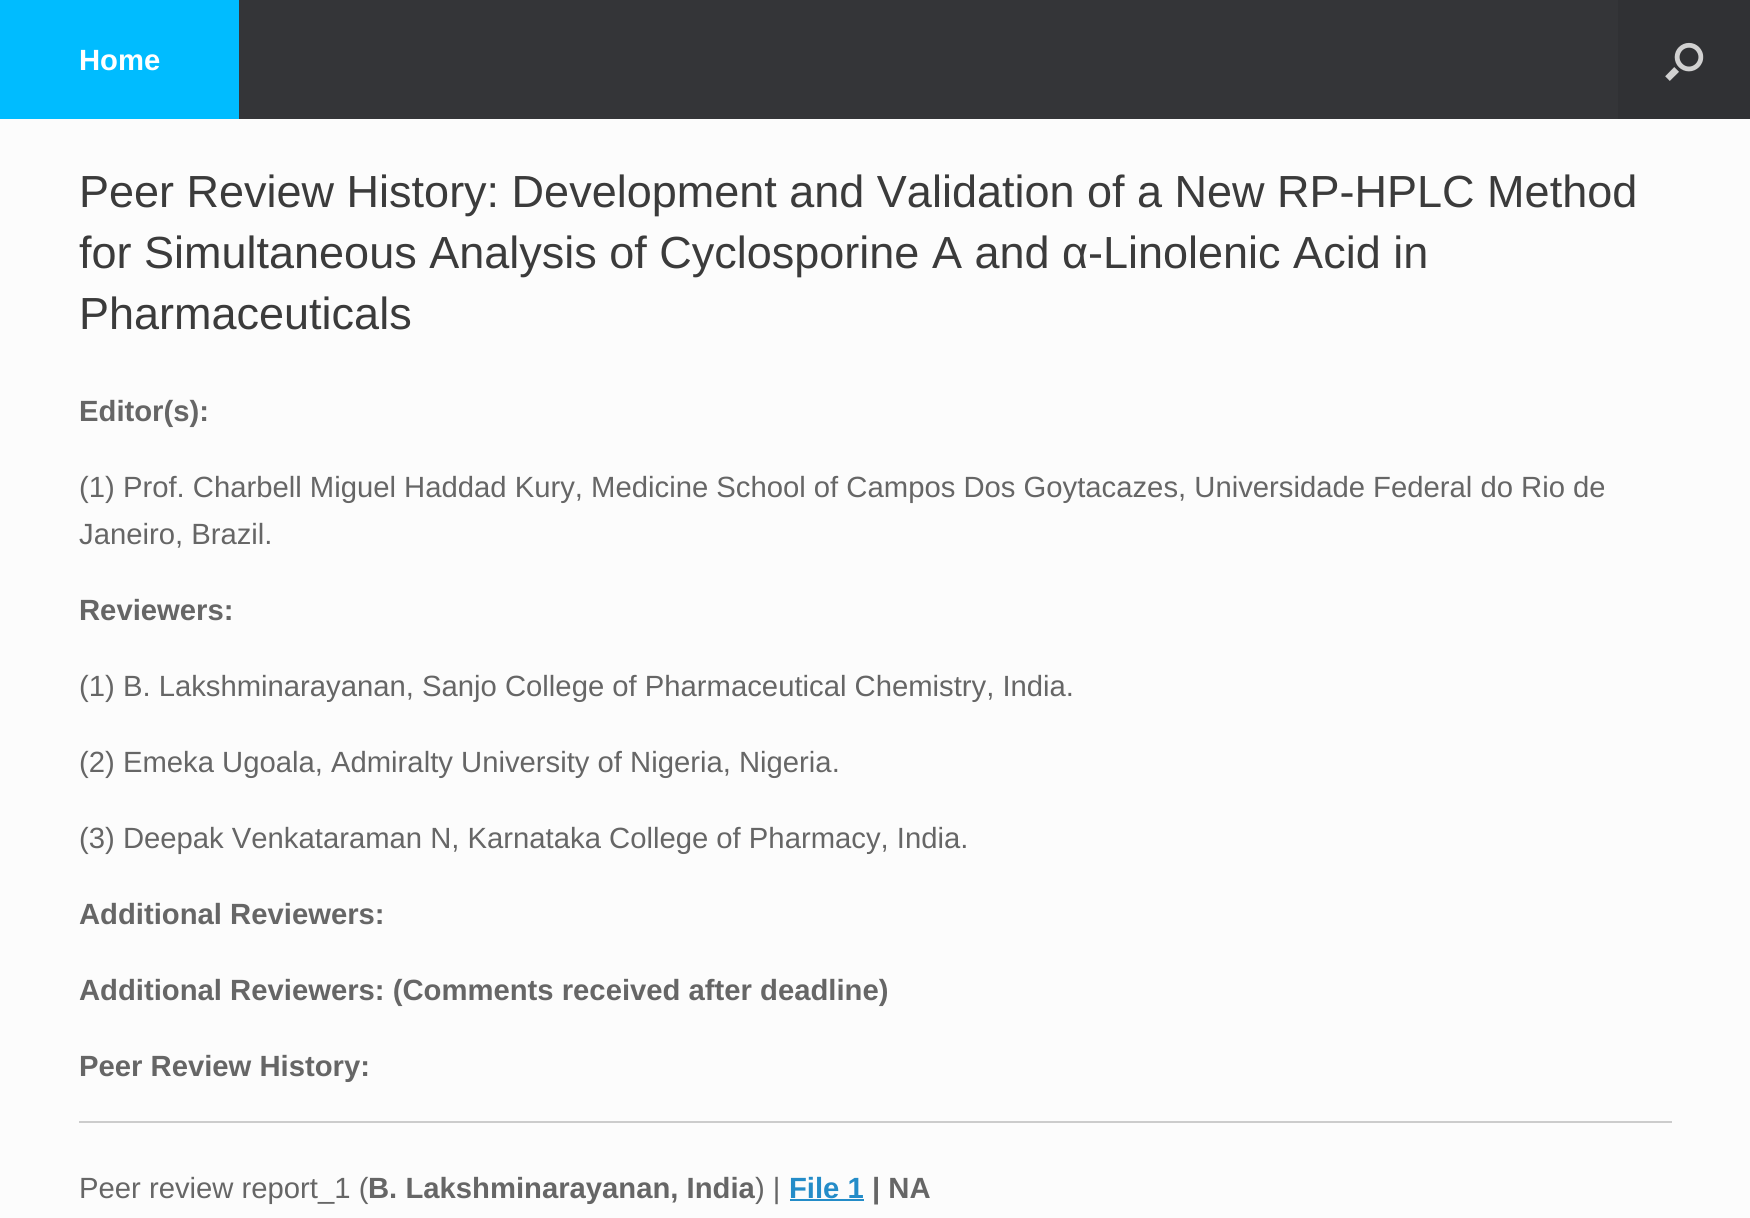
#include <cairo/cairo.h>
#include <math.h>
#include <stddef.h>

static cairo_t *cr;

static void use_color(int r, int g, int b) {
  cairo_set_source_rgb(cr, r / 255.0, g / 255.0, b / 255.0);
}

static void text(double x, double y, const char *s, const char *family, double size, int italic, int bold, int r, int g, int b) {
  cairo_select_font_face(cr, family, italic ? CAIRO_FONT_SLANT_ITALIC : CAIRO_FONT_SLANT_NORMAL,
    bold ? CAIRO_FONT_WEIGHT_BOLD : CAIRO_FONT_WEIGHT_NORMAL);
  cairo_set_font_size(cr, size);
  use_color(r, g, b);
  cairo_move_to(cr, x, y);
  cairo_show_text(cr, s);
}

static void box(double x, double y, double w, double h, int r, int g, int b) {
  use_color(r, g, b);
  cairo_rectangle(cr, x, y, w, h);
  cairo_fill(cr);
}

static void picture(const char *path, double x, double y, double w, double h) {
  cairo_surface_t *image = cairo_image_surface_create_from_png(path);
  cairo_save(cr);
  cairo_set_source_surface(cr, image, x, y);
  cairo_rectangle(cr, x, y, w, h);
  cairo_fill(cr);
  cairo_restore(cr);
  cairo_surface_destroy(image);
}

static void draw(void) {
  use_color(252, 252, 252);
  cairo_paint(cr);
  box(239, 0, 1379, 119, 52, 53, 56);
  box(0, 0, 239, 119, 0, 188, 255);
  box(1618, 0, 132, 119, 48, 49, 52);
  picture("img_01.png", 1665, 42, 39, 39);
  box(79, 1121, 1593, 2, 204, 204, 204);
  box(790, 1199, 74, 2, 36, 140, 200);
  text(79, 70, "Home", "Liberation Sans", 29.25, 0, 1, 255, 255, 255);
  text(79, 207, "Peer Review History: Development and Validation of a New RP-HPLC Method", "Liberation Sans", 45, 0, 0, 59, 59, 59);
  text(79, 268, "for Simultaneous Analysis of Cyclosporine A and α-Linolenic Acid in", "Liberation Sans", 45, 0, 0, 59, 59, 59);
  text(79, 329, "Pharmaceuticals", "Liberation Sans", 45, 0, 0, 59, 59, 59);
  text(79, 421, "Editor(s):", "Liberation Sans", 29.25, 0, 1, 102, 102, 102);
  text(79, 497, "(1) Prof. Charbell Miguel Haddad Kury, Medicine School of Campos Dos Goytacazes, Universidade Federal do Rio de", "Liberation Sans", 29.25, 0, 0, 102, 102, 102);
  text(79, 544, "Janeiro, Brazil.", "Liberation Sans", 29.25, 0, 0, 102, 102, 102);
  text(79, 620, "Reviewers:", "Liberation Sans", 29.25, 0, 1, 102, 102, 102);
  text(79, 696, "(1) B. Lakshminarayanan, Sanjo College of Pharmaceutical Chemistry, India.", "Liberation Sans", 29.25, 0, 0, 102, 102, 102);
  text(79, 772, "(2) Emeka Ugoala, Admiralty University of Nigeria, Nigeria.", "Liberation Sans", 29.25, 0, 0, 102, 102, 102);
  text(79, 848, "(3) Deepak Venkataraman N, Karnataka College of Pharmacy, India.", "Liberation Sans", 29.25, 0, 0, 102, 102, 102);
  text(79, 924, "Additional Reviewers:", "Liberation Sans", 29.25, 0, 1, 102, 102, 102);
  text(79, 1000, "Additional Reviewers: (Comments received after deadline)", "Liberation Sans", 29.25, 0, 1, 102, 102, 102);
  text(79, 1076, "Peer Review History:", "Liberation Sans", 29.25, 0, 1, 102, 102, 102);
  text(79, 1198, "Peer review report_1 (", "Liberation Sans", 29.25, 0, 0, 102, 102, 102);
  text(368, 1198, "B. Lakshminarayanan, India", "Liberation Sans", 29.25, 0, 1, 102, 102, 102);
  text(755, 1198, ") |", "Liberation Sans", 29.25, 0, 0, 102, 102, 102);
  text(789, 1198, "File 1", "Liberation Sans", 29.25, 0, 1, 36, 140, 200);
  text(872, 1198, "| NA", "Liberation Sans", 29.25, 0, 1, 102, 102, 102);
}

int main(void) {
  cairo_surface_t *surface = cairo_image_surface_create(CAIRO_FORMAT_RGB24, 1750, 1218);
  cr = cairo_create(surface);
  cairo_font_options_t *options = cairo_font_options_create();
  cairo_font_options_set_hint_metrics(options, CAIRO_HINT_METRICS_OFF);
  cairo_font_options_set_hint_style(options, CAIRO_HINT_STYLE_NONE);
  cairo_set_font_options(cr, options);
  cairo_set_miter_limit(cr, 4);
  draw();
  cairo_surface_write_to_png(surface, "out.png");
  cairo_font_options_destroy(options);
  cairo_destroy(cr);
  cairo_surface_destroy(surface);
  return 0;
}
